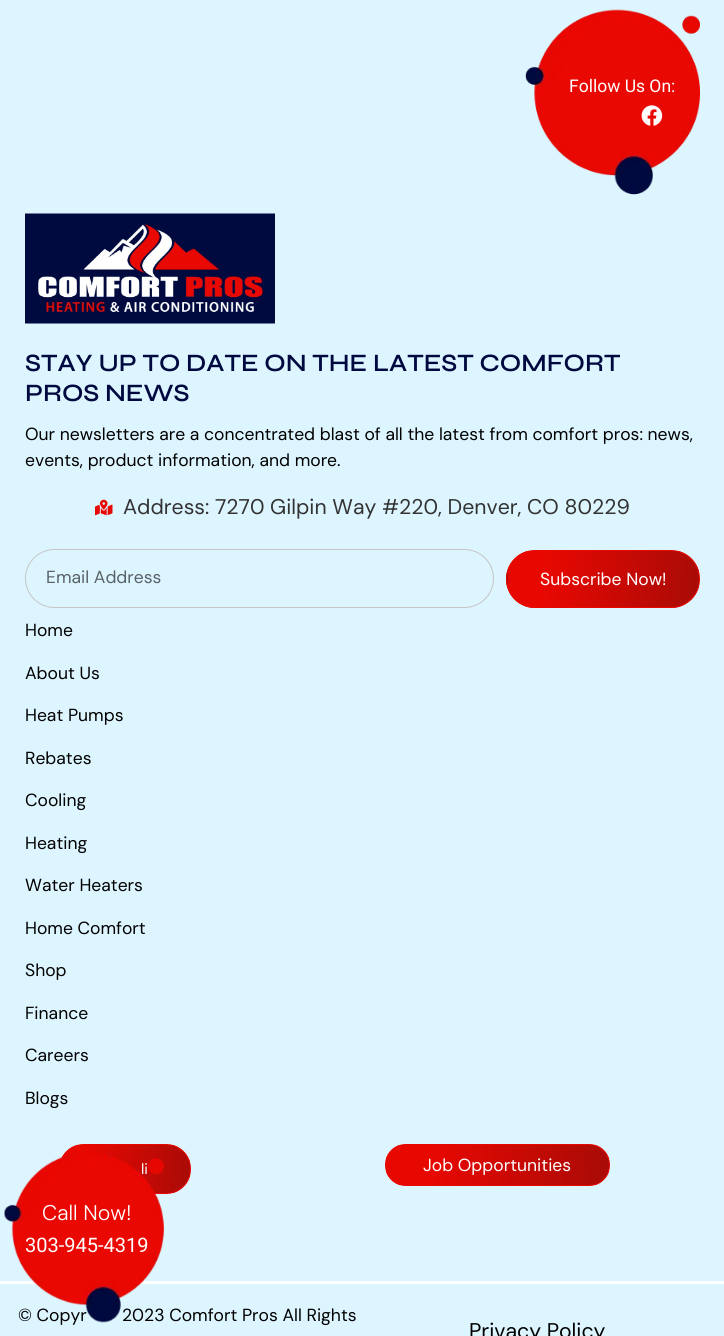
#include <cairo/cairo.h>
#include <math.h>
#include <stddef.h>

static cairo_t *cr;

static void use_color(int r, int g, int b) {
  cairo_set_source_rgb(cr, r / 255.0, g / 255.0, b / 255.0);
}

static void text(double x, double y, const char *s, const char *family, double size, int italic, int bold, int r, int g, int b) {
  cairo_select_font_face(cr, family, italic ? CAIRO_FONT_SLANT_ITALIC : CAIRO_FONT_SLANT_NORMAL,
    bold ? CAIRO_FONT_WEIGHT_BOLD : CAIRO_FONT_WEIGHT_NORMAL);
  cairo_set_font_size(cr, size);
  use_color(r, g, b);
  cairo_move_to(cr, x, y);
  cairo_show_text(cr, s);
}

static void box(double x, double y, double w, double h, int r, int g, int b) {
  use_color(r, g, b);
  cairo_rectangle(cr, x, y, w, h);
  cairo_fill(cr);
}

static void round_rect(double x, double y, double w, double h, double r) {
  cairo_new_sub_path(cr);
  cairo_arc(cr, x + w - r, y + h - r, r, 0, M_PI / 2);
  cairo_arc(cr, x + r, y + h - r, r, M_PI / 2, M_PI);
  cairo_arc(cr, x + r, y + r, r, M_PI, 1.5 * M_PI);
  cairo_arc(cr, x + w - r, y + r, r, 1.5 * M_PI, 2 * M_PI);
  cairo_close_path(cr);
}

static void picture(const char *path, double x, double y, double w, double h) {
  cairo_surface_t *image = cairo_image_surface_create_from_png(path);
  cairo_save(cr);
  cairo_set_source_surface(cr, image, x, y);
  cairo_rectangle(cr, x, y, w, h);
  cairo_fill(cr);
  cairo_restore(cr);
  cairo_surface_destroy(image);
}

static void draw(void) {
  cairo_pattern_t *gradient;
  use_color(255, 255, 255);
  cairo_paint(cr);
  box(0, 0, 724, 1281, 221, 245, 255);
  picture("img_01.png", 525, 9, 175, 186);
  picture("img_02.png", 641, 105, 22, 21);
  picture("img_03.png", 25, 213, 250, 111);
  picture("img_04.png", 95, 499, 18, 17);
  round_rect(25.5, 549.5, 468, 58, 29);
  use_color(197, 197, 197);
  cairo_set_line_width(cr, 1);
  cairo_stroke(cr);
  cairo_save(cr);
  round_rect(506, 550, 194, 58, 29);
  cairo_clip(cr);
  gradient = cairo_pattern_create_linear(315, 570, 509, 587);
  cairo_pattern_add_color_stop_rgba(gradient, 0.2, 0.91, 0.031, 0.008, 1);
  cairo_pattern_add_color_stop_rgba(gradient, 1, 0.659, 0.043, 0.024, 1);
  cairo_set_source(cr, gradient);
  cairo_pattern_destroy(gradient);
  cairo_rectangle(cr, 506, 568, 2, 22);
  cairo_fill(cr);
  gradient = cairo_pattern_create_linear(506, 570, 700, 587);
  cairo_pattern_add_color_stop_rgba(gradient, 0.2, 0.91, 0.031, 0.008, 1);
  cairo_pattern_add_color_stop_rgba(gradient, 1, 0.659, 0.043, 0.024, 1);
  cairo_set_source(cr, gradient);
  cairo_pattern_destroy(gradient);
  cairo_rectangle(cr, 508, 551, 191, 55);
  cairo_fill(cr);
  gradient = cairo_pattern_create_linear(506, 625, 700, 642);
  cairo_pattern_add_color_stop_rgba(gradient, 0.2, 0.91, 0.031, 0.008, 1);
  cairo_pattern_add_color_stop_rgba(gradient, 1, 0.659, 0.043, 0.024, 1);
  cairo_set_source(cr, gradient);
  cairo_pattern_destroy(gradient);
  cairo_rectangle(cr, 524, 606, 158, 2);
  cairo_fill(cr);
  cairo_restore(cr);
  round_rect(506.5, 550.5, 193, 57, 28.5);
  use_color(232, 8, 2);
  cairo_stroke(cr);
  cairo_save(cr);
  round_rect(59, 1144, 132, 50, 25);
  cairo_clip(cr);
  gradient = cairo_pattern_create_linear(58, 1163, 192, 1175);
  cairo_pattern_add_color_stop_rgba(gradient, 0.2, 0.91, 0.031, 0.008, 1);
  cairo_pattern_add_color_stop_rgba(gradient, 1, 0.659, 0.043, 0.024, 1);
  cairo_set_source(cr, gradient);
  cairo_pattern_destroy(gradient);
  cairo_rectangle(cr, 61, 1145, 129, 48);
  cairo_fill(cr);
  cairo_restore(cr);
  round_rect(59.5, 1144.5, 131, 49, 24.5);
  cairo_stroke(cr);
  cairo_save(cr);
  round_rect(385, 1144, 225, 42, 21);
  cairo_clip(cr);
  gradient = cairo_pattern_create_linear(385, 1155, 610, 1175);
  cairo_pattern_add_color_stop_rgba(gradient, 0.2, 0.91, 0.031, 0.008, 1);
  cairo_pattern_add_color_stop_rgba(gradient, 1, 0.659, 0.043, 0.024, 1);
  cairo_set_source(cr, gradient);
  cairo_pattern_destroy(gradient);
  cairo_rectangle(cr, 386, 1145, 223, 40);
  cairo_fill(cr);
  cairo_restore(cr);
  round_rect(385.5, 1144.5, 224, 41, 20.5);
  cairo_stroke(cr);
  box(0, 1284, 724, 52, 221, 245, 255);
  text(569, 92, "Follow Us On:", "Roboto", 17.5, 0, 0, 255, 255, 255);
  text(25, 371, "STAY UP TO DATE ON THE LATEST COMFORT", "Syne SemiBold", 25, 0, 0, 0, 9, 63);
  text(25, 401, "PROS NEWS", "Syne SemiBold", 25, 0, 0, 0, 9, 63);
  text(25, 440, "Our newsletters are a concentrated blast of all the latest from comfort pros: news,", "DM Sans", 17.5, 0, 0, 0, 0, 0);
  text(25, 466, "events, product information, and more.", "DM Sans", 17.5, 0, 0, 0, 0, 0);
  text(123, 514, "Address: 7270 Gilpin Way #220, Denver, CO 80229", "DM Sans", 21.25, 0, 0, 51, 51, 51);
  text(46, 583, "Email Address", "DM Sans", 17.5, 0, 0, 88, 98, 102);
  text(540, 585, "Subscribe Now!", "DM Sans", 17.5, 0, 0, 255, 255, 255);
  text(25, 636, "Home", "DM Sans", 17.5, 0, 0, 0, 0, 0);
  text(25, 679, "About Us", "DM Sans", 17.5, 0, 0, 0, 0, 0);
  text(25, 721, "Heat Pumps", "DM Sans", 17.5, 0, 0, 0, 0, 0);
  text(25, 764, "Rebates", "DM Sans", 17.5, 0, 0, 0, 0, 0);
  text(25, 806, "Cooling", "DM Sans", 17.5, 0, 0, 0, 0, 0);
  text(25, 849, "Heating", "DM Sans", 17.5, 0, 0, 0, 0, 0);
  text(25, 891, "Water Heaters", "DM Sans", 17.5, 0, 0, 0, 0, 0);
  text(25, 934, "Home Comfort", "DM Sans", 17.5, 0, 0, 0, 0, 0);
  text(25, 976, "Shop", "DM Sans", 17.5, 0, 0, 0, 0, 0);
  text(25, 1019, "Finance", "DM Sans", 17.5, 0, 0, 0, 0, 0);
  text(25, 1061, "Careers", "DM Sans", 17.5, 0, 0, 0, 0, 0);
  text(25, 1104, "Blogs", "DM Sans", 17.5, 0, 0, 0, 0, 0);
  text(141, 1174, "li", "DM Sans", 15, 0, 0, 255, 255, 255);
  text(423, 1171, "Job Opportunities", "DM Sans", 17.5, 0, 0, 255, 255, 255);
  text(18, 1321, "© Copyr", "DM Sans", 17.5, 0, 0, 0, 0, 0);
  text(122, 1321, "2023 Comfort Pros All Rights", "DM Sans", 17.5, 0, 0, 0, 0, 0);
  picture("img_05.png", 4, 1153, 160, 170);
  text(25, 1252, "303-945-4319", "Roboto", 20, 0, 0, 255, 255, 255);
  text(42, 1220, "Call Now!", "DM Sans Light", 21.25, 0, 0, 255, 255, 255);
  text(469, 1338, "Privacy Policy", "DM Sans", 21.25, 0, 0, 0, 0, 0);
}

int main(void) {
  cairo_surface_t *surface = cairo_image_surface_create(CAIRO_FORMAT_RGB24, 724, 1336);
  cr = cairo_create(surface);
  cairo_font_options_t *options = cairo_font_options_create();
  cairo_font_options_set_hint_metrics(options, CAIRO_HINT_METRICS_OFF);
  cairo_font_options_set_hint_style(options, CAIRO_HINT_STYLE_NONE);
  cairo_set_font_options(cr, options);
  cairo_set_miter_limit(cr, 4);
  draw();
  cairo_surface_write_to_png(surface, "out.png");
  cairo_font_options_destroy(options);
  cairo_destroy(cr);
  cairo_surface_destroy(surface);
  return 0;
}
